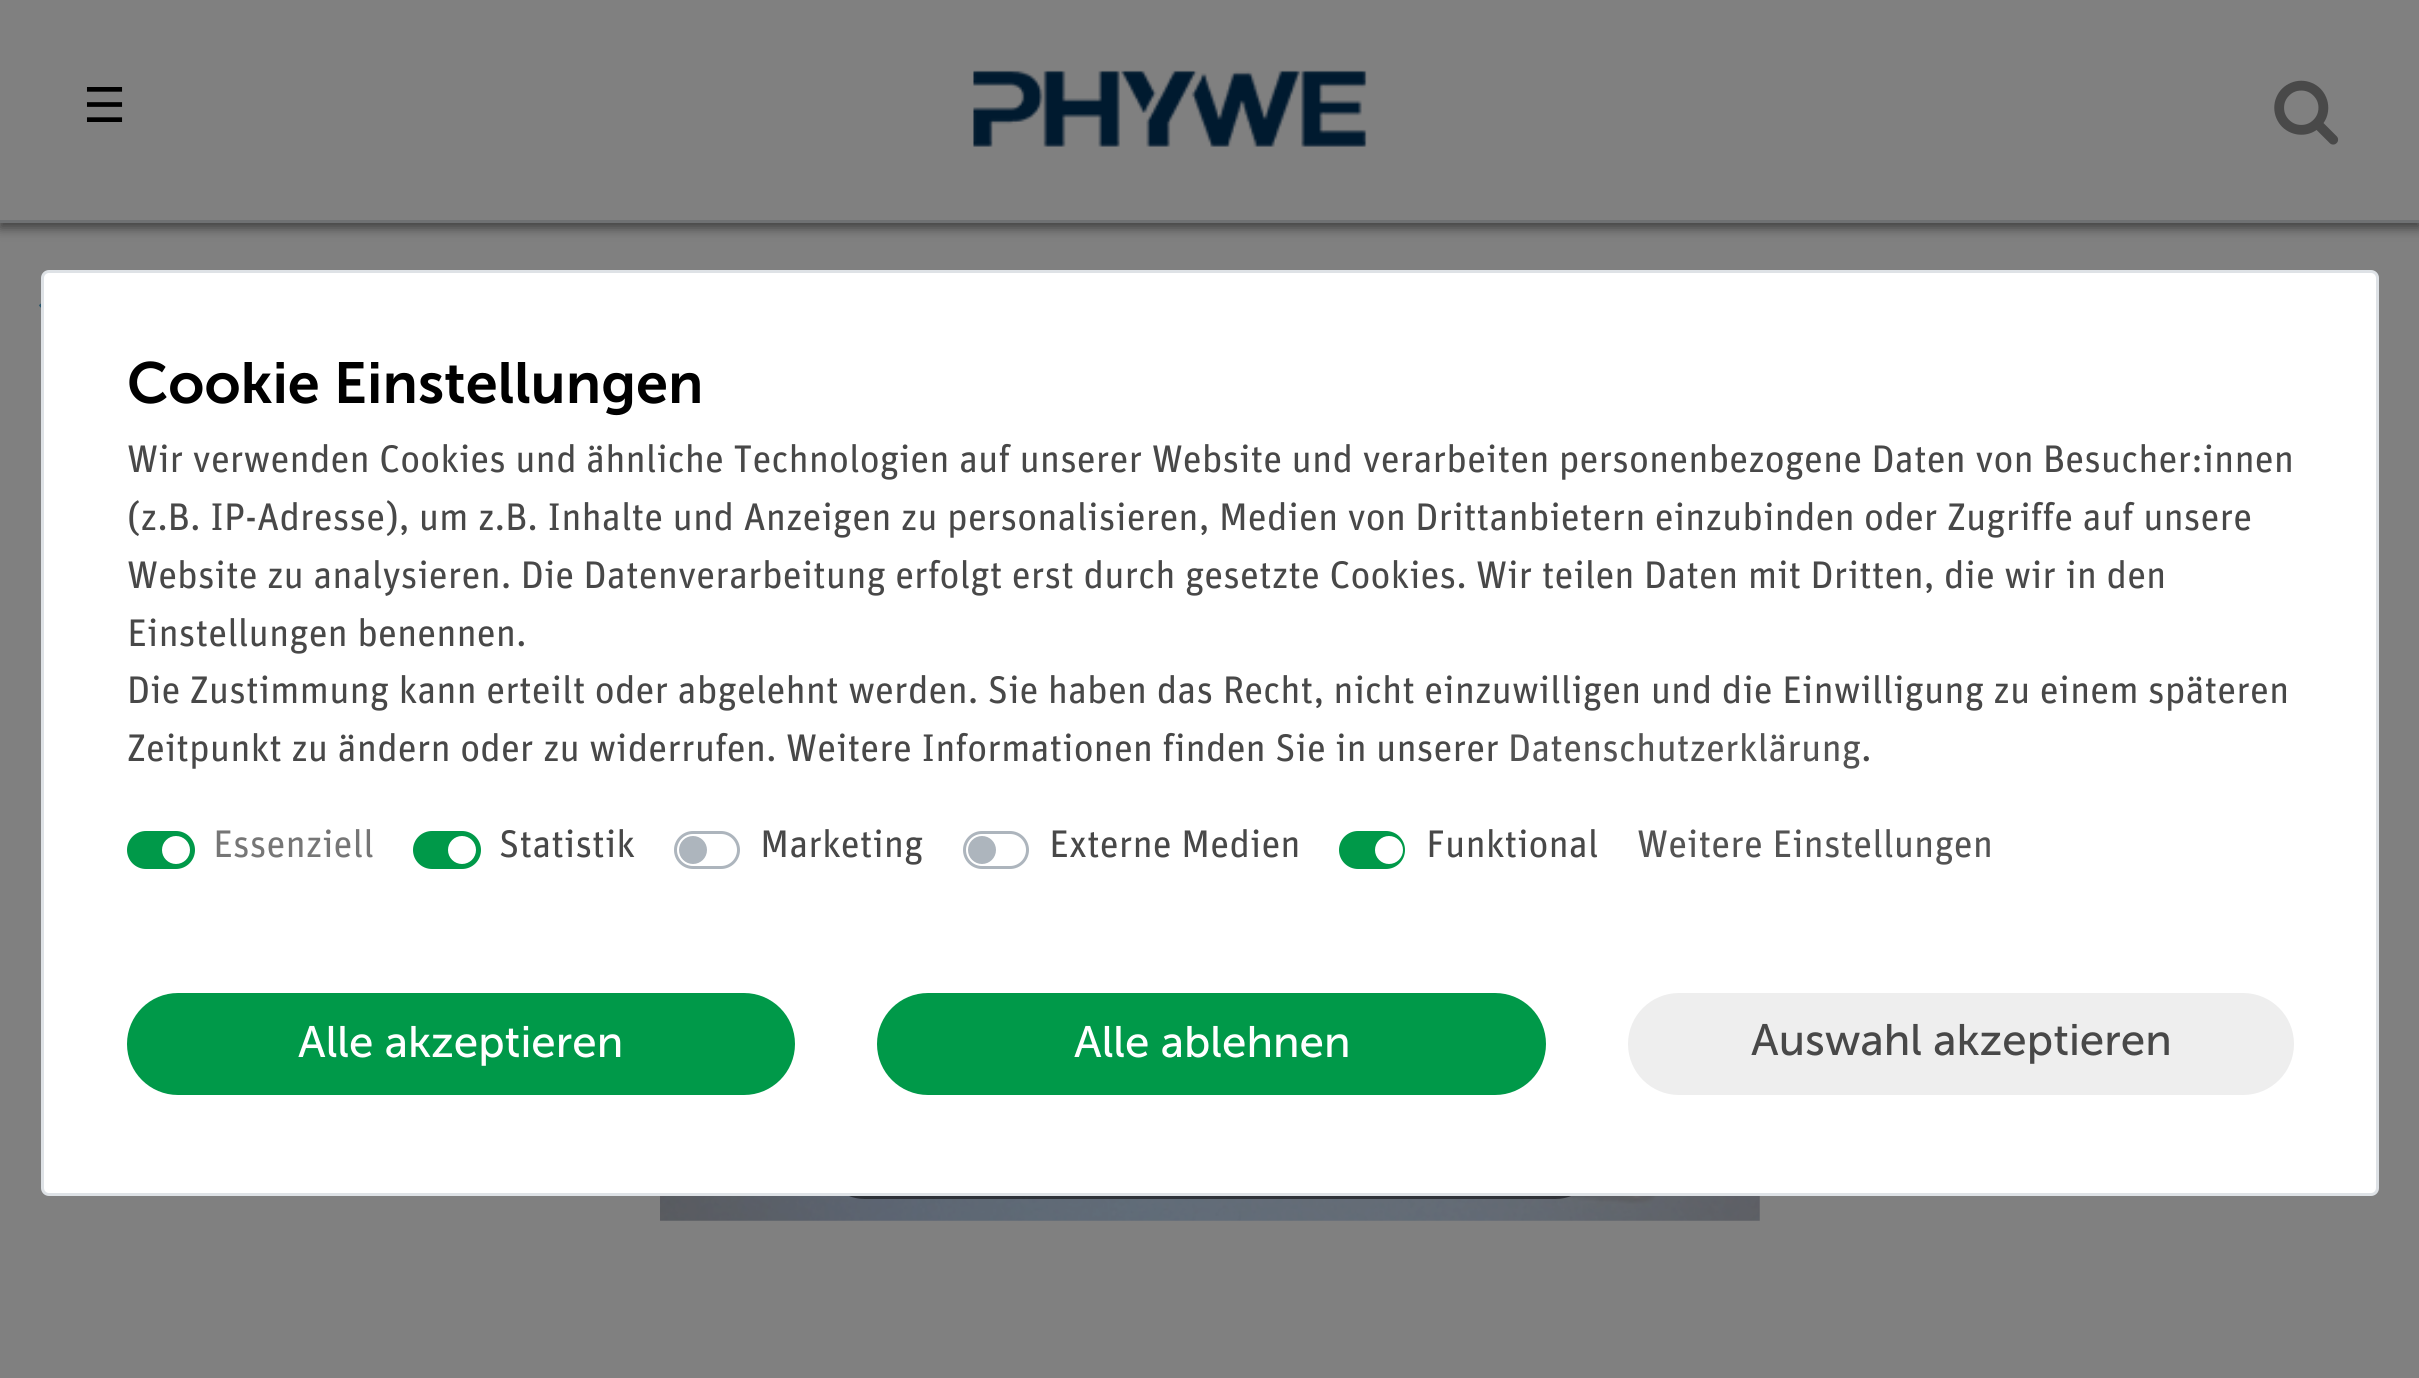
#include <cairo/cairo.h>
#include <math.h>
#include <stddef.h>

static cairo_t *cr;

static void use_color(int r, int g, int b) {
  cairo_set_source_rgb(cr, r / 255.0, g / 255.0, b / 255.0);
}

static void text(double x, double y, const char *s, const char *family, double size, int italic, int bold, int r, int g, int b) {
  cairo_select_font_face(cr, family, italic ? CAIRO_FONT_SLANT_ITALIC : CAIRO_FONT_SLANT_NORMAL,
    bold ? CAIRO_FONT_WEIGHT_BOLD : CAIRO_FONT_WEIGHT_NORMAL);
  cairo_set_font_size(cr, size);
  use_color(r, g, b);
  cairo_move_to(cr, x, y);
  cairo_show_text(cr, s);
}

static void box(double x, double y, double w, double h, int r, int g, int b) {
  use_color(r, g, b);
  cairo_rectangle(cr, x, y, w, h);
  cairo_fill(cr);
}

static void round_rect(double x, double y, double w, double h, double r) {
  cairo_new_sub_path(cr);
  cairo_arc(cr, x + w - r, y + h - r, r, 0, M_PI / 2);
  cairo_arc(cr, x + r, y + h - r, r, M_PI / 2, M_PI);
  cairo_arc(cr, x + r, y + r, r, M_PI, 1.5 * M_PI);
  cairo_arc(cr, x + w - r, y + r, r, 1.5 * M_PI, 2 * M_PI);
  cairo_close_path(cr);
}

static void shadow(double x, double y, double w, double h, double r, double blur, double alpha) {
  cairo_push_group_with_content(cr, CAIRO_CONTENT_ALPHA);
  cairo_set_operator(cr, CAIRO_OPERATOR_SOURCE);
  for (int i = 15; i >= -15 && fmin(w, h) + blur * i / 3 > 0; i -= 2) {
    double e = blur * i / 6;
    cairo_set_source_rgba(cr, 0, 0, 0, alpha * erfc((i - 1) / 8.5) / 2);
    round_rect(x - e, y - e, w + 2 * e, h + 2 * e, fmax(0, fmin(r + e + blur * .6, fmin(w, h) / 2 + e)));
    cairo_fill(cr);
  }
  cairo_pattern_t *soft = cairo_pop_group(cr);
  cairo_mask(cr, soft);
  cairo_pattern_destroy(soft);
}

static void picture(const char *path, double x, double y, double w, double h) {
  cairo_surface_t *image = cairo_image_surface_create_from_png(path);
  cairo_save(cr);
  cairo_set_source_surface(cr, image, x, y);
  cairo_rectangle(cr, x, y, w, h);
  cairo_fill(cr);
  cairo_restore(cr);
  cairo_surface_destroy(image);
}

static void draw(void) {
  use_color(128, 128, 128);
  cairo_paint(cr);
  use_color(0, 0, 0);
  shadow(0, 6, 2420, 222, 0, 5.5, 0.5);
  box(0, 0, 2419, 220, 128, 128, 128);
  box(0, 220, 2419, 3, 111, 113, 115);
  picture("img_01.png", 973, 70, 394, 77);
  picture("img_02.png", 2274, 80, 65, 65);
  picture("img_03.png", 39, 303, 2, 5);
  picture("img_04.png", 660, 1196, 1100, 25);
  cairo_set_source_rgba(cr, 0.098, 0.102, 0.122, 0.7);
  round_rect(822, 1114, 776, 85, 42.5);
  cairo_fill(cr);
  use_color(255, 255, 255);
  round_rect(42.5, 271.5, 2335, 923, 6.5);
  cairo_fill_preserve(cr);
  use_color(222, 226, 230);
  cairo_set_line_width(cr, 3);
  cairo_stroke(cr);
  use_color(0, 153, 73);
  round_rect(128.5, 832.5, 65, 35, 17.5);
  cairo_fill_preserve(cr);
  cairo_stroke(cr);
  use_color(255, 255, 255);
  cairo_arc(cr, 176, 850, 14, 0, 2 * M_PI);
  cairo_fill(cr);
  use_color(0, 153, 73);
  round_rect(414.5, 832.5, 65, 35, 17.5);
  cairo_fill_preserve(cr);
  cairo_stroke(cr);
  use_color(255, 255, 255);
  cairo_arc(cr, 462, 850, 14, 0, 2 * M_PI);
  cairo_fill(cr);
  round_rect(675.5, 832.5, 63, 35, 17.5);
  use_color(173, 181, 189);
  cairo_stroke(cr);
  cairo_arc(cr, 693, 850, 14, 0, 2 * M_PI);
  cairo_fill(cr);
  round_rect(964.5, 832.5, 63, 35, 17.5);
  cairo_stroke(cr);
  cairo_arc(cr, 982, 850, 14, 0, 2 * M_PI);
  cairo_fill(cr);
  use_color(0, 153, 73);
  round_rect(1340.5, 832.5, 63, 35, 17.5);
  cairo_fill_preserve(cr);
  cairo_stroke(cr);
  use_color(255, 255, 255);
  cairo_arc(cr, 1389, 850, 14, 0, 2 * M_PI);
  cairo_fill(cr);
  use_color(0, 153, 73);
  round_rect(130, 996, 662, 96, 48);
  cairo_fill_preserve(cr);
  cairo_set_line_width(cr, 6);
  cairo_stroke(cr);
  round_rect(880, 996, 663, 96, 48);
  cairo_fill_preserve(cr);
  cairo_stroke(cr);
  use_color(238, 238, 238);
  round_rect(1629.5, 994.5, 663, 99, 49.5);
  cairo_fill_preserve(cr);
  cairo_set_line_width(cr, 3);
  cairo_stroke(cr);
  text(83, 122, "☰", "DejaVu Sans", 48, 0, 0, 0, 0, 0);
  text(127, 403, "Cookie Einstellungen", "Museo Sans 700 SemiBold", 57.75, 0, 0, 0, 0, 0);
  text(127, 472, "Wir verwenden Cookies und ähnliche Technologien auf unserer Website und verarbeiten personenbezogene Daten von Besucher:innen", "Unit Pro", 38.5, 0, 0, 72, 72, 72);
  text(127, 530, "(z.B. IP-Adresse), um z.B. Inhalte und Anzeigen zu personalisieren, Medien von Drittanbietern einzubinden oder Zugriffe auf unsere", "Unit Pro", 38.5, 0, 0, 72, 72, 72);
  text(127, 588, "Website zu analysieren. Die Datenverarbeitung erfolgt erst durch gesetzte Cookies. Wir teilen Daten mit Dritten, die wir in den", "Unit Pro", 38.5, 0, 0, 72, 72, 72);
  text(127, 646, "Einstellungen benennen.", "Unit Pro", 38.5, 0, 0, 72, 72, 72);
  text(127, 703, "Die Zustimmung kann erteilt oder abgelehnt werden. Sie haben das Recht, nicht einzuwilligen und die Einwilligung zu einem späteren", "Unit Pro", 38.5, 0, 0, 72, 72, 72);
  text(127, 761, "Zeitpunkt zu ändern oder zu widerrufen. Weitere Informationen finden Sie in unserer", "Unit Pro", 38.5, 0, 0, 72, 72, 72);
  text(1508, 761, "Datenschutzerklärung", "Unit Pro", 38.5, 0, 0, 83, 83, 83);
  text(1861, 761, ".", "Unit Pro", 38.5, 0, 0, 72, 72, 72);
  text(213, 857, "Essenziell", "Unit Pro", 38.5, 0, 0, 118, 118, 118);
  text(499, 857, "Statistik", "Unit Pro", 38.5, 0, 0, 72, 72, 72);
  text(760, 857, "Marketing", "Unit Pro", 38.5, 0, 0, 72, 72, 72);
  text(1049, 857, "Externe Medien", "Unit Pro", 38.5, 0, 0, 72, 72, 72);
  text(1426, 857, "Funktional", "Unit Pro", 38.5, 0, 0, 72, 72, 72);
  text(1637, 857, "Weitere Einstellungen", "Unit Pro", 38.5, 0, 0, 83, 83, 83);
  text(298, 1057, "Alle akzeptieren", "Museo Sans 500", 44, 0, 0, 255, 255, 255);
  text(1074, 1057, "Alle ablehnen", "Museo Sans 500", 44, 0, 0, 255, 255, 255);
  text(1751, 1055, "Auswahl akzeptieren", "Museo Sans 500", 44, 0, 0, 72, 72, 72);
}

int main(void) {
  cairo_surface_t *surface = cairo_image_surface_create(CAIRO_FORMAT_RGB24, 2419, 1378);
  cr = cairo_create(surface);
  cairo_font_options_t *options = cairo_font_options_create();
  cairo_font_options_set_hint_metrics(options, CAIRO_HINT_METRICS_OFF);
  cairo_font_options_set_hint_style(options, CAIRO_HINT_STYLE_NONE);
  cairo_set_font_options(cr, options);
  cairo_set_miter_limit(cr, 4);
  draw();
  cairo_surface_write_to_png(surface, "out.png");
  cairo_font_options_destroy(options);
  cairo_destroy(cr);
  cairo_surface_destroy(surface);
  return 0;
}
